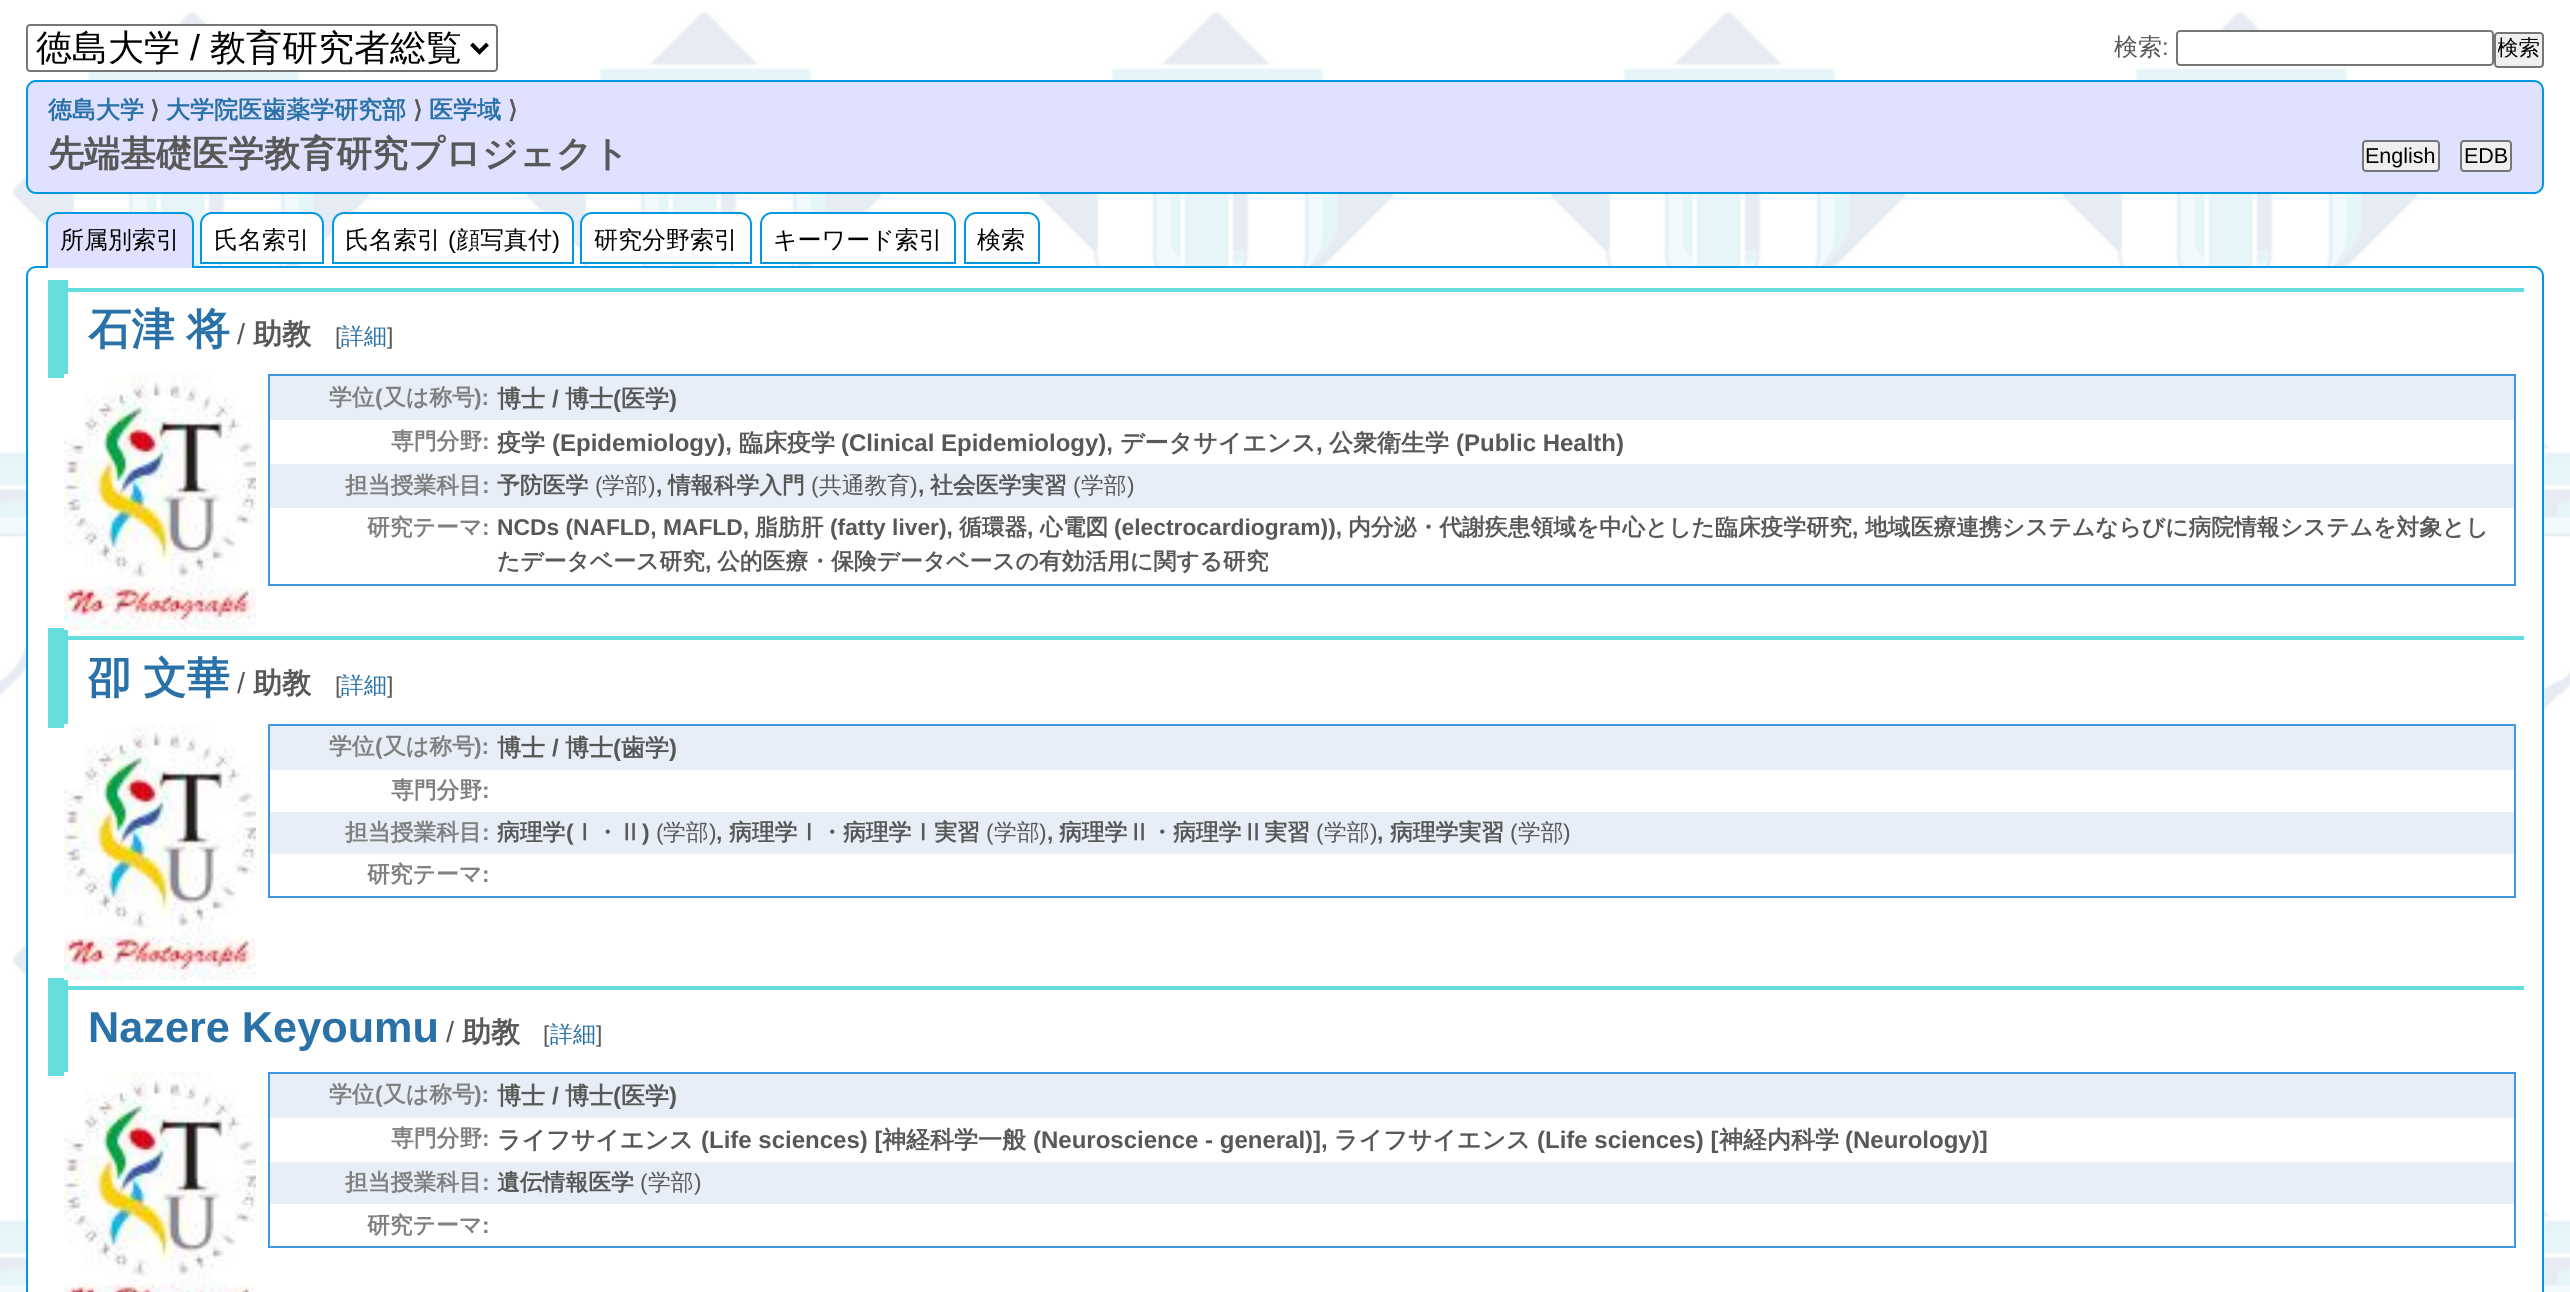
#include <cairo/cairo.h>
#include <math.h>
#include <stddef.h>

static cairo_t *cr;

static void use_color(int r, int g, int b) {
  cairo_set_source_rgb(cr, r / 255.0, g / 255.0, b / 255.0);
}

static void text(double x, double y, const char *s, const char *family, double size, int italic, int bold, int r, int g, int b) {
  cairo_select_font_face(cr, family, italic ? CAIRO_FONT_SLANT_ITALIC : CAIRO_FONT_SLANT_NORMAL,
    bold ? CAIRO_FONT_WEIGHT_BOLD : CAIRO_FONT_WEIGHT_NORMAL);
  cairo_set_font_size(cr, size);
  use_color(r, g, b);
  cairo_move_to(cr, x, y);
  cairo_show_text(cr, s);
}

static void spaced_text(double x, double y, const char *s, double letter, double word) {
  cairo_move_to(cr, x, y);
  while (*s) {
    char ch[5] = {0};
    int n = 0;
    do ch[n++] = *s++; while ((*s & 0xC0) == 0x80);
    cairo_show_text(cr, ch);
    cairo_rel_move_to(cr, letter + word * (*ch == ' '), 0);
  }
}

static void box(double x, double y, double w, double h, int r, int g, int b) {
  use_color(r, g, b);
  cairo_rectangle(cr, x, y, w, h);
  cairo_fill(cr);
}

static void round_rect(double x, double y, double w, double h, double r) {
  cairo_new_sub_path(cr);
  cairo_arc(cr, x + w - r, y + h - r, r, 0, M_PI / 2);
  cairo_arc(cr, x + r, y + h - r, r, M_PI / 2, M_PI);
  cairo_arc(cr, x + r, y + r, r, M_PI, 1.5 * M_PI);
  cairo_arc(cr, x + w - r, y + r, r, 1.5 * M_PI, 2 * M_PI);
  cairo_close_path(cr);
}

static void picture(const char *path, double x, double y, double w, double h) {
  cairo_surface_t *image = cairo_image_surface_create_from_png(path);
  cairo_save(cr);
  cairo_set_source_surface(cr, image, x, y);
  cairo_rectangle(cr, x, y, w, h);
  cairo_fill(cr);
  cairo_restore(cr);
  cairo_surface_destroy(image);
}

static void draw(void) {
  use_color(255, 255, 255);
  cairo_paint(cr);
  picture("img_01.png", 0, 0, 2570, 1292);
  use_color(255, 255, 255);
  round_rect(27, 25, 470, 46, 3);
  cairo_fill_preserve(cr);
  use_color(118, 118, 118);
  cairo_stroke(cr);
  cairo_new_path(cr);
  cairo_move_to(cr, 471.5, 44);
  cairo_line_to(cr, 479.5, 52);
  cairo_line_to(cr, 487.5, 44);
  use_color(0, 0, 0);
  cairo_set_line_width(cr, 4);
  cairo_stroke(cr);
  use_color(255, 255, 255);
  round_rect(2177, 31, 316, 34, 3);
  cairo_fill_preserve(cr);
  use_color(118, 118, 118);
  cairo_set_line_width(cr, 2);
  cairo_stroke(cr);
  use_color(239, 239, 239);
  round_rect(2495, 33, 48, 34, 3);
  cairo_fill_preserve(cr);
  use_color(118, 118, 118);
  cairo_stroke(cr);
  use_color(224, 224, 255);
  round_rect(27, 81, 2516, 112, 9);
  cairo_fill_preserve(cr);
  use_color(0, 152, 226);
  cairo_stroke(cr);
  use_color(239, 239, 239);
  round_rect(2363, 141, 76, 30, 3);
  cairo_fill_preserve(cr);
  use_color(118, 118, 118);
  cairo_stroke(cr);
  use_color(239, 239, 239);
  round_rect(2461, 141, 50, 30, 3);
  cairo_fill_preserve(cr);
  use_color(118, 118, 118);
  cairo_stroke(cr);
  use_color(255, 255, 255);
  round_rect(27, 267, 2516, 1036, 9);
  cairo_fill_preserve(cr);
  use_color(0, 152, 226);
  cairo_stroke(cr);
  use_color(224, 224, 255);
  cairo_new_path(cr);
  cairo_move_to(cr, 58, 212);
  cairo_line_to(cr, 182, 212);
  cairo_curve_to(cr, 188.5, 212, 194, 217.5, 194, 224);
  cairo_line_to(cr, 194, 268);
  cairo_line_to(cr, 46, 268);
  cairo_line_to(cr, 46, 224);
  cairo_curve_to(cr, 46, 217.5, 51.5, 212, 58, 212);
  cairo_close_path(cr);
  cairo_fill(cr);
  use_color(0, 152, 226);
  cairo_set_fill_rule(cr, CAIRO_FILL_RULE_EVEN_ODD);
  cairo_new_path(cr);
  cairo_move_to(cr, 58, 212);
  cairo_line_to(cr, 182, 212);
  cairo_curve_to(cr, 189, 212, 194, 217, 194, 224);
  cairo_line_to(cr, 194, 268);
  cairo_line_to(cr, 46, 268);
  cairo_line_to(cr, 46, 224);
  cairo_curve_to(cr, 46, 217, 51, 212, 58, 212);
  cairo_close_path(cr);
  cairo_move_to(cr, 58, 214);
  cairo_line_to(cr, 182, 214);
  cairo_curve_to(cr, 188, 214, 192, 218, 192, 224);
  cairo_line_to(cr, 192, 268);
  cairo_line_to(cr, 48, 268);
  cairo_line_to(cr, 48, 224);
  cairo_curve_to(cr, 48, 218, 52, 214, 58, 214);
  cairo_close_path(cr);
  cairo_fill(cr);
  use_color(255, 255, 255);
  cairo_new_path(cr);
  cairo_move_to(cr, 212, 213);
  cairo_line_to(cr, 312, 213);
  cairo_curve_to(cr, 318, 213, 323, 218, 323, 224);
  cairo_line_to(cr, 323, 263);
  cairo_line_to(cr, 201, 263);
  cairo_line_to(cr, 201, 224);
  cairo_curve_to(cr, 201, 218, 206, 213, 212, 213);
  cairo_close_path(cr);
  cairo_fill_preserve(cr);
  use_color(0, 152, 226);
  cairo_stroke(cr);
  use_color(255, 255, 255);
  cairo_new_path(cr);
  cairo_move_to(cr, 344, 213);
  cairo_line_to(cr, 562, 213);
  cairo_curve_to(cr, 568, 213, 573, 218, 573, 224);
  cairo_line_to(cr, 573, 263);
  cairo_line_to(cr, 333, 263);
  cairo_line_to(cr, 333, 224);
  cairo_curve_to(cr, 333, 218, 338, 213, 344, 213);
  cairo_close_path(cr);
  cairo_fill_preserve(cr);
  use_color(0, 152, 226);
  cairo_stroke(cr);
  use_color(255, 255, 255);
  cairo_new_path(cr);
  cairo_move_to(cr, 592, 213);
  cairo_line_to(cr, 740, 213);
  cairo_curve_to(cr, 746, 213, 751, 218, 751, 224);
  cairo_line_to(cr, 751, 263);
  cairo_line_to(cr, 581, 263);
  cairo_line_to(cr, 581, 224);
  cairo_curve_to(cr, 581, 218, 586, 213, 592, 213);
  cairo_close_path(cr);
  cairo_fill_preserve(cr);
  use_color(0, 152, 226);
  cairo_stroke(cr);
  use_color(255, 255, 255);
  cairo_new_path(cr);
  cairo_move_to(cr, 772, 213);
  cairo_line_to(cr, 944, 213);
  cairo_curve_to(cr, 950, 213, 955, 218, 955, 224);
  cairo_line_to(cr, 955, 263);
  cairo_line_to(cr, 761, 263);
  cairo_line_to(cr, 761, 224);
  cairo_curve_to(cr, 761, 218, 766, 213, 772, 213);
  cairo_close_path(cr);
  cairo_fill_preserve(cr);
  use_color(0, 152, 226);
  cairo_stroke(cr);
  cairo_new_path(cr);
  cairo_move_to(cr, 976, 213);
  cairo_line_to(cr, 1028, 213);
  cairo_curve_to(cr, 1034, 213, 1039, 218, 1039, 224);
  cairo_line_to(cr, 1039, 263);
  cairo_line_to(cr, 965, 263);
  cairo_line_to(cr, 965, 224);
  cairo_curve_to(cr, 965, 218, 970, 213, 976, 213);
  cairo_close_path(cr);
  cairo_stroke(cr);
  box(68, 288, 2456, 4, 102, 221, 221);
  box(48, 280, 20, 98, 102, 221, 221);
  box(48, 628, 20, 100, 102, 221, 221);
  picture("img_02.png", 64, 374, 192, 256);
  box(268, 374, 2248, 2, 64, 152, 226);
  box(2514, 374, 2, 212, 64, 152, 226);
  box(268, 584, 2248, 2, 64, 152, 226);
  box(268, 374, 2, 212, 64, 152, 226);
  box(270, 376, 2244, 44, 232, 238, 247);
  box(270, 464, 2244, 44, 232, 238, 247);
  box(68, 636, 2456, 4, 102, 221, 221);
  box(48, 978, 20, 98, 102, 221, 221);
  picture("img_02.png", 64, 724, 192, 256);
  box(268, 724, 2248, 2, 64, 152, 226);
  box(2514, 724, 2, 174, 64, 152, 226);
  box(268, 896, 2248, 2, 64, 152, 226);
  box(268, 724, 2, 174, 64, 152, 226);
  box(270, 726, 2244, 44, 232, 238, 247);
  box(270, 812, 2244, 42, 232, 238, 247);
  box(68, 986, 2456, 4, 102, 221, 221);
  picture("img_03.png", 64, 1072, 192, 220);
  box(268, 1072, 2248, 2, 64, 152, 226);
  box(2514, 1072, 2, 176, 64, 152, 226);
  box(268, 1246, 2248, 2, 64, 152, 226);
  box(268, 1072, 2, 176, 64, 152, 226);
  box(270, 1074, 2244, 44, 232, 238, 247);
  box(270, 1162, 2244, 42, 232, 238, 247);
  text(36, 60, "徳島大学", "WenQuanYi Zen Hei Medium", 36, 0, 0, 0, 0, 0);
  text(190, 60, "/", "Liberation Sans", 36, 0, 0, 0, 0, 0);
  text(210, 60, "教育研究者総覧", "WenQuanYi Zen Hei Medium", 36, 0, 0, 0, 0, 0);
  text(2114, 55, "検索", "WenQuanYi Zen Hei Medium", 24, 0, 0, 88, 88, 88);
  text(2162, 55, ":", "Liberation Sans", 24, 0, 0, 88, 88, 88);
  cairo_save(cr);
  cairo_set_fill_rule(cr, CAIRO_FILL_RULE_WINDING);
  cairo_rectangle(cr, 2498, 36, 42, 28);
  cairo_clip(cr);
  text(2497, 55, "検索", "WenQuanYi Zen Hei Medium", 21.5, 0, 0, 0, 0, 0);
  cairo_restore(cr);
  text(48, 118, "徳島大学", "WenQuanYi Zen Hei", 24, 0, 1, 41, 113, 167);
  text(150, 118, "⟩", "DejaVu Sans", 24, 0, 1, 88, 88, 88);
  text(166, 118, "大学院医歯薬学研究部", "WenQuanYi Zen Hei", 24, 0, 1, 41, 113, 167);
  text(413, 118, "⟩", "DejaVu Sans", 24, 0, 1, 88, 88, 88);
  text(429, 118, "医学域", "WenQuanYi Zen Hei", 24, 0, 1, 41, 113, 167);
  text(508, 118, "⟩", "DejaVu Sans", 24, 0, 1, 88, 88, 88);
  text(48, 166, "先端基礎医学教育研究プロジェクト", "WenQuanYi Zen Hei", 36, 0, 1, 88, 88, 88);
  text(2365, 163, "English", "Liberation Sans", 21.5, 0, 0, 0, 0, 0);
  text(2464, 163, "EDB", "Liberation Sans", 21.5, 0, 0, 0, 0, 0);
  text(60, 248, "所属別索引", "WenQuanYi Zen Hei Medium", 24, 0, 0, 0, 0, 0);
  text(214, 248, "氏名索引", "WenQuanYi Zen Hei Medium", 24, 0, 0, 0, 0, 0);
  text(345, 248, "氏名索引", "WenQuanYi Zen Hei Medium", 24, 0, 0, 0, 0, 0);
  text(448, 248, "(", "Liberation Sans", 24, 0, 0, 0, 0, 0);
  text(456, 248, "顔写真付", "WenQuanYi Zen Hei Medium", 24, 0, 0, 0, 0, 0);
  text(552, 248, ")", "Liberation Sans", 24, 0, 0, 0, 0, 0);
  text(594, 248, "研究分野索引", "WenQuanYi Zen Hei Medium", 24, 0, 0, 0, 0, 0);
  text(773, 248, "キーワード索引", "WenQuanYi Zen Hei Medium", 24, 0, 0, 0, 0, 0);
  text(977, 248, "検索", "WenQuanYi Zen Hei Medium", 24, 0, 0, 0, 0, 0);
  cairo_select_font_face(cr, "WenQuanYi Zen Hei", CAIRO_FONT_SLANT_NORMAL, CAIRO_FONT_WEIGHT_BOLD);
  cairo_set_font_size(cr, 43.25);
  use_color(41, 113, 167);
  spaced_text(88, 344, "石津 将", 0, -1);
  text(237, 344, "/", "Liberation Sans", 29, 0, 0, 88, 88, 88);
  text(253, 344, "助教", "WenQuanYi Zen Hei", 29, 0, 1, 88, 88, 88);
  text(335, 344, "[", "Liberation Sans", 23, 0, 0, 88, 88, 88);
  text(341, 344, "詳細", "WenQuanYi Zen Hei Medium", 23, 0, 0, 41, 113, 167);
  text(387, 344, "]", "Liberation Sans", 23, 0, 0, 88, 88, 88);
  text(329, 405, "学位", "WenQuanYi Zen Hei", 22.8, 0, 1, 128, 128, 128);
  text(375, 405, "(", "Liberation Sans", 22.8, 0, 1, 128, 128, 128);
  text(383, 405, "又は称号", "WenQuanYi Zen Hei", 22.8, 0, 1, 128, 128, 128);
  text(474, 405, "):", "Liberation Sans", 22.8, 0, 1, 128, 128, 128);
  text(497, 407, "博士", "WenQuanYi Zen Hei", 24, 0, 1, 88, 88, 88);
  text(552, 407, "/", "Liberation Sans", 24, 0, 1, 88, 88, 88);
  text(565, 407, "博士", "WenQuanYi Zen Hei", 24, 0, 1, 88, 88, 88);
  text(613, 407, "(", "Liberation Sans", 24, 0, 1, 88, 88, 88);
  text(621, 407, "医学", "WenQuanYi Zen Hei", 24, 0, 1, 88, 88, 88);
  text(669, 407, ")", "Liberation Sans", 24, 0, 1, 88, 88, 88);
  text(391, 449, "専門分野", "WenQuanYi Zen Hei", 22.8, 0, 1, 128, 128, 128);
  text(482, 449, ":", "Liberation Sans", 22.8, 0, 1, 128, 128, 128);
  text(497, 451, "疫学", "WenQuanYi Zen Hei", 24, 0, 1, 88, 88, 88);
  text(552, 451, "(Epidemiology),", "Liberation Sans", 24, 0, 1, 88, 88, 88);
  text(739, 451, "臨床疫学", "WenQuanYi Zen Hei", 24, 0, 1, 88, 88, 88);
  text(841, 451, "(Clinical Epidemiology),", "Liberation Sans", 24, 0, 1, 88, 88, 88);
  text(1120, 451, "データサイエンス", "WenQuanYi Zen Hei", 24, 0, 1, 88, 88, 88);
  text(1316, 451, ",", "Liberation Sans", 24, 0, 1, 88, 88, 88);
  text(1329, 451, "公衆衛生学", "WenQuanYi Zen Hei", 24, 0, 1, 88, 88, 88);
  text(1456, 451, "(Public Health)", "Liberation Sans", 24, 0, 1, 88, 88, 88);
  text(345, 493, "担当授業科目", "WenQuanYi Zen Hei", 22.8, 0, 1, 128, 128, 128);
  text(482, 493, ":", "Liberation Sans", 22.8, 0, 1, 128, 128, 128);
  text(497, 493, "予防医学", "WenQuanYi Zen Hei", 22.8, 0, 1, 88, 88, 88);
  text(595, 493, "(", "Liberation Sans", 22.8, 0, 0, 88, 88, 88);
  text(602, 493, "学部", "WenQuanYi Zen Hei Medium", 22.8, 0, 0, 88, 88, 88);
  text(648, 493, ")", "Liberation Sans", 22.8, 0, 0, 88, 88, 88);
  text(656, 493, ",", "Liberation Sans", 22.8, 0, 1, 88, 88, 88);
  text(668, 493, "情報科学入門", "WenQuanYi Zen Hei", 22.8, 0, 1, 88, 88, 88);
  text(811, 493, "(", "Liberation Sans", 22.8, 0, 0, 88, 88, 88);
  text(819, 493, "共通教育", "WenQuanYi Zen Hei Medium", 22.8, 0, 0, 88, 88, 88);
  text(910, 493, ")", "Liberation Sans", 22.8, 0, 0, 88, 88, 88);
  text(918, 493, ",", "Liberation Sans", 22.8, 0, 1, 88, 88, 88);
  text(930, 493, "社会医学実習", "WenQuanYi Zen Hei", 22.8, 0, 1, 88, 88, 88);
  text(1073, 493, "(", "Liberation Sans", 22.8, 0, 0, 88, 88, 88);
  text(1081, 493, "学部", "WenQuanYi Zen Hei Medium", 22.8, 0, 0, 88, 88, 88);
  text(1127, 493, ")", "Liberation Sans", 22.8, 0, 0, 88, 88, 88);
  text(367, 535, "研究テーマ", "WenQuanYi Zen Hei", 22.8, 0, 1, 128, 128, 128);
  text(482, 535, ":", "Liberation Sans", 22.8, 0, 1, 128, 128, 128);
  text(497, 535, "NCDs (NAFLD, MAFLD,", "Liberation Sans", 22.8, 0, 1, 88, 88, 88);
  text(755, 535, "脂肪肝", "WenQuanYi Zen Hei", 22.8, 0, 1, 88, 88, 88);
  text(830, 535, "(fatty liver),", "Liberation Sans", 22.8, 0, 1, 88, 88, 88);
  text(959, 535, "循環器", "WenQuanYi Zen Hei", 22.8, 0, 1, 88, 88, 88);
  text(1027, 535, ",", "Liberation Sans", 22.8, 0, 1, 88, 88, 88);
  text(1040, 535, "心電図", "WenQuanYi Zen Hei", 22.8, 0, 1, 88, 88, 88);
  text(1114, 535, "(electrocardiogram)),", "Liberation Sans", 22.8, 0, 1, 88, 88, 88);
  text(1348, 535, "内分泌・代謝疾患領域を中心とした臨床疫学研究", "WenQuanYi Zen Hei", 22.8, 0, 1, 88, 88, 88);
  text(1852, 535, ",", "Liberation Sans", 22.8, 0, 1, 88, 88, 88);
  text(1865, 535, "地域医療連携システムならびに病院情報システムを対象とし", "WenQuanYi Zen Hei", 22.8, 0, 1, 88, 88, 88);
  text(497, 569, "たデータベース研究", "WenQuanYi Zen Hei", 22.8, 0, 1, 88, 88, 88);
  text(705, 569, ",", "Liberation Sans", 22.8, 0, 1, 88, 88, 88);
  text(717, 569, "公的医療・保険データベースの有効活用に関する研究", "WenQuanYi Zen Hei", 22.8, 0, 1, 88, 88, 88);
  cairo_set_font_size(cr, 43.25);
  use_color(41, 113, 167);
  spaced_text(88, 693, "卲 文華", 0, -1);
  text(237, 693, "/", "Liberation Sans", 29, 0, 0, 88, 88, 88);
  text(253, 693, "助教", "WenQuanYi Zen Hei", 29, 0, 1, 88, 88, 88);
  text(335, 693, "[", "Liberation Sans", 23, 0, 0, 88, 88, 88);
  text(341, 693, "詳細", "WenQuanYi Zen Hei Medium", 23, 0, 0, 41, 113, 167);
  text(387, 693, "]", "Liberation Sans", 23, 0, 0, 88, 88, 88);
  text(329, 754, "学位", "WenQuanYi Zen Hei", 22.8, 0, 1, 128, 128, 128);
  text(375, 754, "(", "Liberation Sans", 22.8, 0, 1, 128, 128, 128);
  text(383, 754, "又は称号", "WenQuanYi Zen Hei", 22.8, 0, 1, 128, 128, 128);
  text(474, 754, "):", "Liberation Sans", 22.8, 0, 1, 128, 128, 128);
  text(497, 756, "博士", "WenQuanYi Zen Hei", 24, 0, 1, 88, 88, 88);
  text(552, 756, "/", "Liberation Sans", 24, 0, 1, 88, 88, 88);
  text(565, 756, "博士", "WenQuanYi Zen Hei", 24, 0, 1, 88, 88, 88);
  text(613, 756, "(", "Liberation Sans", 24, 0, 1, 88, 88, 88);
  text(621, 756, "歯学", "WenQuanYi Zen Hei", 24, 0, 1, 88, 88, 88);
  text(669, 756, ")", "Liberation Sans", 24, 0, 1, 88, 88, 88);
  text(391, 798, "専門分野", "WenQuanYi Zen Hei", 22.8, 0, 1, 128, 128, 128);
  text(482, 798, ":", "Liberation Sans", 22.8, 0, 1, 128, 128, 128);
  text(345, 840, "担当授業科目", "WenQuanYi Zen Hei", 22.8, 0, 1, 128, 128, 128);
  text(482, 840, ":", "Liberation Sans", 22.8, 0, 1, 128, 128, 128);
  text(497, 840, "病理学", "WenQuanYi Zen Hei", 22.8, 0, 1, 88, 88, 88);
  text(566, 840, "(", "Liberation Sans", 22.8, 0, 1, 88, 88, 88);
  text(573, 840, "Ⅰ・Ⅱ", "WenQuanYi Zen Hei", 22.8, 0, 1, 88, 88, 88);
  text(642, 840, ")", "Liberation Sans", 22.8, 0, 1, 88, 88, 88);
  text(656, 840, "(", "Liberation Sans", 22.8, 0, 0, 88, 88, 88);
  text(663, 840, "学部", "WenQuanYi Zen Hei Medium", 22.8, 0, 0, 88, 88, 88);
  text(709, 840, ")", "Liberation Sans", 22.8, 0, 0, 88, 88, 88);
  text(716, 840, ",", "Liberation Sans", 22.8, 0, 1, 88, 88, 88);
  text(729, 840, "病理学Ⅰ・病理学Ⅰ実習", "WenQuanYi Zen Hei", 22.8, 0, 1, 88, 88, 88);
  text(986, 840, "(", "Liberation Sans", 22.8, 0, 0, 88, 88, 88);
  text(994, 840, "学部", "WenQuanYi Zen Hei Medium", 22.8, 0, 0, 88, 88, 88);
  text(1039, 840, ")", "Liberation Sans", 22.8, 0, 0, 88, 88, 88);
  text(1047, 840, ",", "Liberation Sans", 22.8, 0, 1, 88, 88, 88);
  text(1059, 840, "病理学Ⅱ・病理学Ⅱ実習", "WenQuanYi Zen Hei", 22.8, 0, 1, 88, 88, 88);
  text(1316, 840, "(", "Liberation Sans", 22.8, 0, 0, 88, 88, 88);
  text(1324, 840, "学部", "WenQuanYi Zen Hei Medium", 22.8, 0, 0, 88, 88, 88);
  text(1370, 840, ")", "Liberation Sans", 22.8, 0, 0, 88, 88, 88);
  text(1377, 840, ",", "Liberation Sans", 22.8, 0, 1, 88, 88, 88);
  text(1390, 840, "病理学実習", "WenQuanYi Zen Hei", 22.8, 0, 1, 88, 88, 88);
  text(1510, 840, "(", "Liberation Sans", 22.8, 0, 0, 88, 88, 88);
  text(1518, 840, "学部", "WenQuanYi Zen Hei Medium", 22.8, 0, 0, 88, 88, 88);
  text(1563, 840, ")", "Liberation Sans", 22.8, 0, 0, 88, 88, 88);
  text(367, 882, "研究テーマ", "WenQuanYi Zen Hei", 22.8, 0, 1, 128, 128, 128);
  text(482, 882, ":", "Liberation Sans", 22.8, 0, 1, 128, 128, 128);
  text(88, 1042, "Nazere Keyoumu", "Liberation Sans", 43.25, 0, 1, 41, 113, 167);
  text(446, 1042, "/", "Liberation Sans", 29, 0, 0, 88, 88, 88);
  text(462, 1042, "助教", "WenQuanYi Zen Hei", 29, 0, 1, 88, 88, 88);
  text(543, 1042, "[", "Liberation Sans", 23, 0, 0, 88, 88, 88);
  text(550, 1042, "詳細", "WenQuanYi Zen Hei Medium", 23, 0, 0, 41, 113, 167);
  text(596, 1042, "]", "Liberation Sans", 23, 0, 0, 88, 88, 88);
  text(329, 1102, "学位", "WenQuanYi Zen Hei", 22.8, 0, 1, 128, 128, 128);
  text(375, 1102, "(", "Liberation Sans", 22.8, 0, 1, 128, 128, 128);
  text(383, 1102, "又は称号", "WenQuanYi Zen Hei", 22.8, 0, 1, 128, 128, 128);
  text(474, 1102, "):", "Liberation Sans", 22.8, 0, 1, 128, 128, 128);
  text(497, 1104, "博士", "WenQuanYi Zen Hei", 24, 0, 1, 88, 88, 88);
  text(552, 1104, "/", "Liberation Sans", 24, 0, 1, 88, 88, 88);
  text(565, 1104, "博士", "WenQuanYi Zen Hei", 24, 0, 1, 88, 88, 88);
  text(613, 1104, "(", "Liberation Sans", 24, 0, 1, 88, 88, 88);
  text(621, 1104, "医学", "WenQuanYi Zen Hei", 24, 0, 1, 88, 88, 88);
  text(669, 1104, ")", "Liberation Sans", 24, 0, 1, 88, 88, 88);
  text(391, 1146, "専門分野", "WenQuanYi Zen Hei", 22.8, 0, 1, 128, 128, 128);
  text(482, 1146, ":", "Liberation Sans", 22.8, 0, 1, 128, 128, 128);
  text(497, 1148, "ライフサイエンス", "WenQuanYi Zen Hei", 24, 0, 1, 88, 88, 88);
  text(701, 1148, "(Life sciences) [", "Liberation Sans", 24, 0, 1, 88, 88, 88);
  text(882, 1148, "神経科学一般", "WenQuanYi Zen Hei", 24, 0, 1, 88, 88, 88);
  text(1033, 1148, "(Neuroscience - general)],", "Liberation Sans", 24, 0, 1, 88, 88, 88);
  text(1334, 1148, "ライフサイエンス", "WenQuanYi Zen Hei", 24, 0, 1, 88, 88, 88);
  text(1537, 1148, "(Life sciences) [", "Liberation Sans", 24, 0, 1, 88, 88, 88);
  text(1719, 1148, "神経内科学", "WenQuanYi Zen Hei", 24, 0, 1, 88, 88, 88);
  text(1845, 1148, "(Neurology)]", "Liberation Sans", 24, 0, 1, 88, 88, 88);
  text(345, 1190, "担当授業科目", "WenQuanYi Zen Hei", 22.8, 0, 1, 128, 128, 128);
  text(482, 1190, ":", "Liberation Sans", 22.8, 0, 1, 128, 128, 128);
  text(497, 1190, "遺伝情報医学", "WenQuanYi Zen Hei", 22.8, 0, 1, 88, 88, 88);
  text(640, 1190, "(", "Liberation Sans", 22.8, 0, 0, 88, 88, 88);
  text(648, 1190, "学部", "WenQuanYi Zen Hei Medium", 22.8, 0, 0, 88, 88, 88);
  text(694, 1190, ")", "Liberation Sans", 22.8, 0, 0, 88, 88, 88);
  text(367, 1233, "研究テーマ", "WenQuanYi Zen Hei", 22.8, 0, 1, 128, 128, 128);
  text(482, 1233, ":", "Liberation Sans", 22.8, 0, 1, 128, 128, 128);
}

int main(void) {
  cairo_surface_t *surface = cairo_image_surface_create(CAIRO_FORMAT_RGB24, 2570, 1292);
  cr = cairo_create(surface);
  cairo_font_options_t *options = cairo_font_options_create();
  cairo_font_options_set_hint_metrics(options, CAIRO_HINT_METRICS_OFF);
  cairo_font_options_set_hint_style(options, CAIRO_HINT_STYLE_NONE);
  cairo_set_font_options(cr, options);
  cairo_set_miter_limit(cr, 4);
  draw();
  cairo_surface_write_to_png(surface, "out.png");
  cairo_font_options_destroy(options);
  cairo_destroy(cr);
  cairo_surface_destroy(surface);
  return 0;
}
